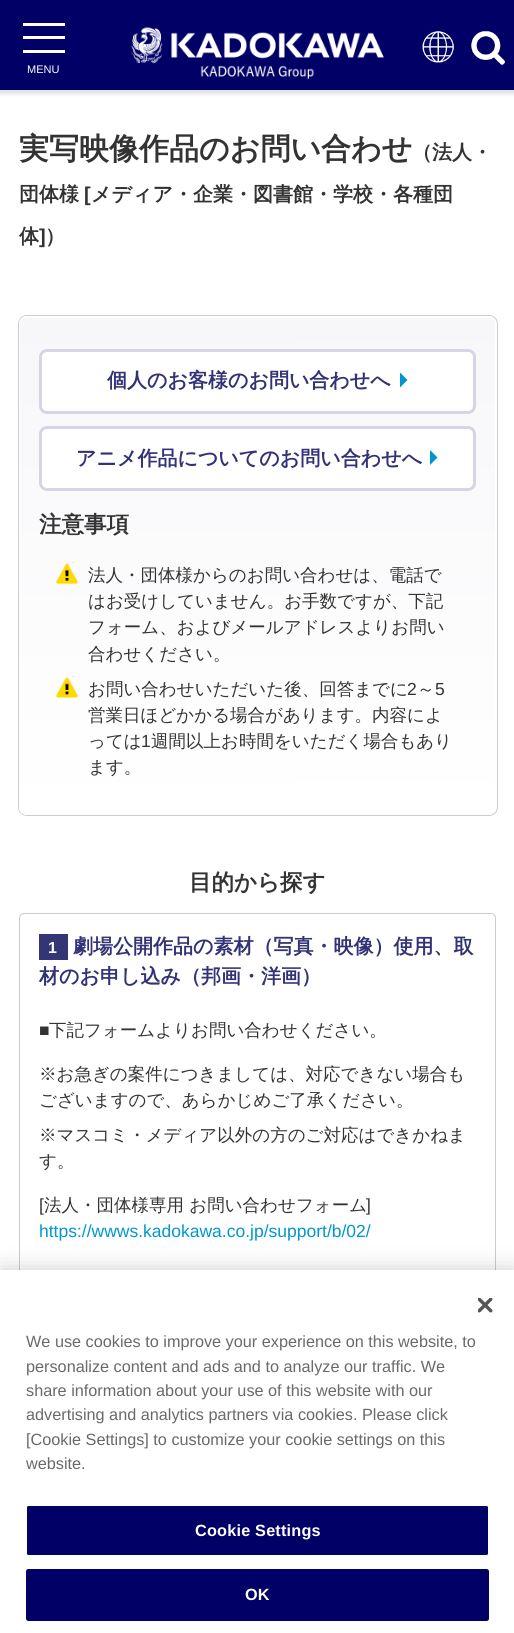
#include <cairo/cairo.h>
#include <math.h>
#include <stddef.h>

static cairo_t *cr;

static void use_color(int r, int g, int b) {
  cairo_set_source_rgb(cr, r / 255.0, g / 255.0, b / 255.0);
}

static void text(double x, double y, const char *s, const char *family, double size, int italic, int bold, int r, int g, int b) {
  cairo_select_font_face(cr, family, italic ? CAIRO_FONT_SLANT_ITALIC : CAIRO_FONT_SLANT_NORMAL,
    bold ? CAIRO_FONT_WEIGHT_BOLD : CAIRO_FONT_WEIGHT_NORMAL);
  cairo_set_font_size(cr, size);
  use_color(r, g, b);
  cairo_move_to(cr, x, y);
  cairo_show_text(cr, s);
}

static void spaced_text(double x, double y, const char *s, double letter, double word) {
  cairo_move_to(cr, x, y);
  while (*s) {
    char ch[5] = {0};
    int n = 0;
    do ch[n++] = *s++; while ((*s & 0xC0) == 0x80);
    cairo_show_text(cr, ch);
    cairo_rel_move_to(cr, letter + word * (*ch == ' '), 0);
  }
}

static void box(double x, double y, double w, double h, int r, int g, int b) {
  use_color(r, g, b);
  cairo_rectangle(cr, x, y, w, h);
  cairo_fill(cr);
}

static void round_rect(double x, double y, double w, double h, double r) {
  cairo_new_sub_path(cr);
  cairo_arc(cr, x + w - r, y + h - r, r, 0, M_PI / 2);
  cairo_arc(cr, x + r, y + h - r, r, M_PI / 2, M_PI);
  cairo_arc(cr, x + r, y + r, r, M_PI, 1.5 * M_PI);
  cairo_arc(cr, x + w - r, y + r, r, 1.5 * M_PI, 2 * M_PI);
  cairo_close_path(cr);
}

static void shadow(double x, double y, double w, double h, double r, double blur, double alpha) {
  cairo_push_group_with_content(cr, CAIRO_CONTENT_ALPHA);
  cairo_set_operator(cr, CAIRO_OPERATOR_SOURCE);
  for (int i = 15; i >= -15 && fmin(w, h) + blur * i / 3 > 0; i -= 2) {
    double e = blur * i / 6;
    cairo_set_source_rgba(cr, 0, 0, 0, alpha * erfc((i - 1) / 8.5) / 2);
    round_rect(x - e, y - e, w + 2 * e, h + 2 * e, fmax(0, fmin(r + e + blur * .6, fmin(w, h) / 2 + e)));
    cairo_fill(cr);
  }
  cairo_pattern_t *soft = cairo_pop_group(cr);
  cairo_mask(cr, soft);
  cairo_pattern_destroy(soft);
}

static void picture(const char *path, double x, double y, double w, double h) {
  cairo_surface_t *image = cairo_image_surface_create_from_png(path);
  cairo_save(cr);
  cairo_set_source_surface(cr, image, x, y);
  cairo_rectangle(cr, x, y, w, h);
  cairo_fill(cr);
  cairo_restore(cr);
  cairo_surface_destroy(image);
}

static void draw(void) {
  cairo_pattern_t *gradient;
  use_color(255, 255, 255);
  cairo_paint(cr);
  use_color(225, 225, 226);
  shadow(-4, -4, 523, 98, 0, 2, 1);
  box(0, 0, 514, 90, 0, 0, 102);
  picture("img_01.png", 131, 27, 253, 37);
  picture("img_02.png", 200, 65, 114, 15);
  picture("img_03.png", 422, 30, 32, 33);
  picture("img_04.png", 471, 31, 34, 34);
  box(23, 23, 42, 3, 255, 255, 255);
  box(23, 36, 42, 3, 255, 255, 255);
  box(23, 50, 42, 3, 255, 255, 255);
  round_rect(18.5, 315.5, 479, 500, 8.5);
  use_color(204, 204, 204);
  cairo_set_line_width(cr, 1);
  cairo_stroke(cr);
  cairo_save(cr);
  round_rect(19, 316, 477, 499, 8);
  cairo_clip(cr);
  gradient = cairo_pattern_create_linear(257, -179, 258, 318);
  cairo_pattern_add_color_stop_rgba(gradient, 0, 1, 1, 1, 1);
  cairo_pattern_add_color_stop_rgba(gradient, 0, 0.969, 0.969, 0.98, 1);
  cairo_pattern_add_color_stop_rgba(gradient, 1, 1, 1, 1, 1);
  cairo_set_source(cr, gradient);
  cairo_pattern_destroy(gradient);
  cairo_rectangle(cr, 19, 316, 477, 2);
  cairo_fill(cr);
  gradient = cairo_pattern_create_linear(257, 317, 258, 814);
  cairo_pattern_add_color_stop_rgba(gradient, 0, 1, 1, 1, 1);
  cairo_pattern_add_color_stop_rgba(gradient, 0, 0.969, 0.969, 0.98, 1);
  cairo_pattern_add_color_stop_rgba(gradient, 1, 1, 1, 1, 1);
  cairo_set_source(cr, gradient);
  cairo_pattern_destroy(gradient);
  cairo_rectangle(cr, 19, 318, 477, 496);
  cairo_fill(cr);
  cairo_restore(cr);
  round_rect(19.5, 316.5, 476, 498, 7.5);
  use_color(255, 255, 255);
  cairo_stroke(cr);
  round_rect(40.5, 350.5, 434, 62, 6.5);
  cairo_fill_preserve(cr);
  use_color(215, 213, 227);
  cairo_set_line_width(cr, 3);
  cairo_stroke(cr);
  use_color(0, 149, 203);
  cairo_new_path(cr);
  cairo_move_to(cr, 400, 387.5);
  cairo_line_to(cr, 400, 372.5);
  cairo_line_to(cr, 407.5, 380);
  cairo_close_path(cr);
  cairo_fill(cr);
  use_color(255, 255, 255);
  round_rect(40.5, 427.5, 434, 62, 6.5);
  cairo_fill_preserve(cr);
  use_color(215, 213, 227);
  cairo_stroke(cr);
  use_color(0, 149, 203);
  cairo_new_path(cr);
  cairo_move_to(cr, 430, 465);
  cairo_line_to(cr, 430, 450);
  cairo_line_to(cr, 437.5, 457.5);
  cairo_close_path(cr);
  cairo_fill(cr);
  picture("img_05.png", 56, 562, 22, 23);
  picture("img_06.png", 56, 676, 22, 22);
  round_rect(19.5, 913.5, 476, 366, 4.5);
  use_color(204, 204, 204);
  cairo_set_line_width(cr, 1);
  cairo_stroke(cr);
  box(39, 934, 29, 26, 51, 53, 117);
  use_color(0, 0, 0);
  shadow(0, 1270, 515, 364, 0, 11, 0.2);
  box(0, 1270, 514, 363, 255, 255, 255);
  picture("img_07.png", 478, 1298, 15, 15);
  use_color(0, 0, 102);
  round_rect(26.5, 1505.5, 462, 50, 2);
  cairo_fill_preserve(cr);
  use_color(255, 255, 255);
  cairo_stroke(cr);
  use_color(0, 0, 102);
  round_rect(26.5, 1569.5, 462, 51, 2);
  cairo_fill_preserve(cr);
  cairo_stroke(cr);
  text(27, 73, "MENU", "Liberation Sans", 11, 0, 0, 255, 255, 255);
  text(19, 159, "実写映像作品のお問い合わせ", "WenQuanYi Zen Hei", 30, 0, 1, 51, 51, 51);
  text(412, 159, "（法人・", "WenQuanYi Zen Hei", 20, 0, 1, 51, 51, 51);
  text(19, 201, "団体様", "WenQuanYi Zen Hei", 20, 0, 1, 51, 51, 51);
  text(84, 201, "[", "Liberation Sans", 20, 0, 1, 51, 51, 51);
  text(91, 201, "メディア・企業・図書館・学校・各種団", "WenQuanYi Zen Hei", 20, 0, 1, 51, 51, 51);
  text(19, 243, "体", "WenQuanYi Zen Hei", 20, 0, 1, 51, 51, 51);
  text(39, 243, "]", "Liberation Sans", 20, 0, 1, 51, 51, 51);
  text(45, 243, "）", "WenQuanYi Zen Hei", 20, 0, 1, 51, 51, 51);
  text(107, 387, "個人のお客様のお問い合わせへ", "WenQuanYi Zen Hei", 20, 0, 1, 50, 50, 118);
  text(76, 465, "アニメ作品についてのお問い合わせへ", "WenQuanYi Zen Hei", 20, 0, 1, 50, 50, 118);
  text(39, 532, "注意事項", "WenQuanYi Zen Hei", 22.5, 0, 1, 51, 51, 51);
  text(88, 581, "法人・団体様からのお問い合わせは、電話で", "WenQuanYi Zen Hei Medium", 17.5, 0, 0, 51, 51, 51);
  text(88, 607, "はお受けしていません。お手数ですが、下記", "WenQuanYi Zen Hei Medium", 17.5, 0, 0, 51, 51, 51);
  text(88, 633, "フォーム、およびメールアドレスよりお問い", "WenQuanYi Zen Hei Medium", 17.5, 0, 0, 51, 51, 51);
  text(88, 660, "合わせください。", "WenQuanYi Zen Hei Medium", 17.5, 0, 0, 51, 51, 51);
  text(88, 695, "お問い合わせいただいた後、回答までに", "WenQuanYi Zen Hei Medium", 17.5, 0, 0, 51, 51, 51);
  text(407, 695, "2", "Liberation Sans", 17.5, 0, 0, 51, 51, 51);
  text(417, 695, "～", "WenQuanYi Zen Hei Medium", 17.5, 0, 0, 51, 51, 51);
  text(435, 695, "5", "Liberation Sans", 17.5, 0, 0, 51, 51, 51);
  text(88, 721, "営業日ほどかかる場合があります。内容によ", "WenQuanYi Zen Hei Medium", 17.5, 0, 0, 51, 51, 51);
  text(88, 747, "っては", "WenQuanYi Zen Hei Medium", 17.5, 0, 0, 51, 51, 51);
  text(141, 747, "1", "Liberation Sans", 17.5, 0, 0, 51, 51, 51);
  text(151, 747, "週間以上お時間をいただく場合もあり", "WenQuanYi Zen Hei Medium", 17.5, 0, 0, 51, 51, 51);
  text(88, 773, "ます。", "WenQuanYi Zen Hei Medium", 17.5, 0, 0, 51, 51, 51);
  text(189, 890, "目的から探す", "WenQuanYi Zen Hei", 22.5, 0, 1, 51, 51, 51);
  text(48, 953, "1", "Liberation Sans", 16, 0, 1, 255, 255, 255);
  text(73, 953, "劇場公開作品の素材（写真・映像）使用、取", "WenQuanYi Zen Hei", 20, 0, 1, 50, 50, 118);
  text(39, 983, "材のお申し込み（邦画・洋画）", "WenQuanYi Zen Hei", 20, 0, 1, 50, 50, 118);
  text(39, 1036, "■", "Liberation Sans", 17.5, 0, 0, 51, 51, 51);
  text(49, 1036, "下記フォームよりお問い合わせください。", "WenQuanYi Zen Hei Medium", 17.5, 0, 0, 51, 51, 51);
  text(39, 1080, "※お急ぎの案件につきましては、対応できない場合も", "WenQuanYi Zen Hei Medium", 17.5, 0, 0, 51, 51, 51);
  text(39, 1106, "ございますので、あらかじめご了承ください。", "WenQuanYi Zen Hei Medium", 17.5, 0, 0, 51, 51, 51);
  text(39, 1141, "※マスコミ・メディア以外の方のご対応はできかねま", "WenQuanYi Zen Hei Medium", 17.5, 0, 0, 51, 51, 51);
  text(39, 1167, "す。", "WenQuanYi Zen Hei Medium", 17.5, 0, 0, 51, 51, 51);
  text(39, 1211, "[", "Liberation Sans", 17.5, 0, 0, 51, 51, 51);
  text(44, 1211, "法人・団体様専用 お問い合わせフォーム", "WenQuanYi Zen Hei Medium", 17.5, 0, 0, 51, 51, 51);
  text(366, 1211, "]", "Liberation Sans", 17.5, 0, 0, 51, 51, 51);
  text(39, 1237, "https://wwws.kadokawa.co.jp/support/b/02/", "Liberation Sans", 17.5, 0, 0, 0, 152, 206);
  text(26, 1347, "We use cookies to improve your experience on this website, to", "Liberation Sans", 16.25, 0, 0, 105, 105, 105);
  text(26, 1372, "personalize content and ads and to analyze our traffic. We", "Liberation Sans", 16.25, 0, 0, 105, 105, 105);
  text(26, 1396, "share information about your use of this website with our", "Liberation Sans", 16.25, 0, 0, 105, 105, 105);
  text(26, 1420, "advertising and analytics partners via cookies. Please click", "Liberation Sans", 16.25, 0, 0, 105, 105, 105);
  text(26, 1445, "[Cookie Settings] to customize your cookie settings on this", "Liberation Sans", 16.25, 0, 0, 105, 105, 105);
  text(26, 1469, "website.", "Liberation Sans", 16.25, 0, 0, 105, 105, 105);
  cairo_select_font_face(cr, "Liberation Sans", CAIRO_FONT_SLANT_NORMAL, CAIRO_FONT_WEIGHT_BOLD);
  use_color(255, 255, 255);
  spaced_text(195, 1536, "Cookie Settings", 0.2, 0);
  spaced_text(245, 1600, "OK", 0.2, 0);
}

int main(void) {
  cairo_surface_t *surface = cairo_image_surface_create(CAIRO_FORMAT_RGB24, 514, 1633);
  cr = cairo_create(surface);
  cairo_font_options_t *options = cairo_font_options_create();
  cairo_font_options_set_hint_metrics(options, CAIRO_HINT_METRICS_OFF);
  cairo_font_options_set_hint_style(options, CAIRO_HINT_STYLE_NONE);
  cairo_set_font_options(cr, options);
  cairo_set_miter_limit(cr, 4);
  draw();
  cairo_surface_write_to_png(surface, "out.png");
  cairo_font_options_destroy(options);
  cairo_destroy(cr);
  cairo_surface_destroy(surface);
  return 0;
}
